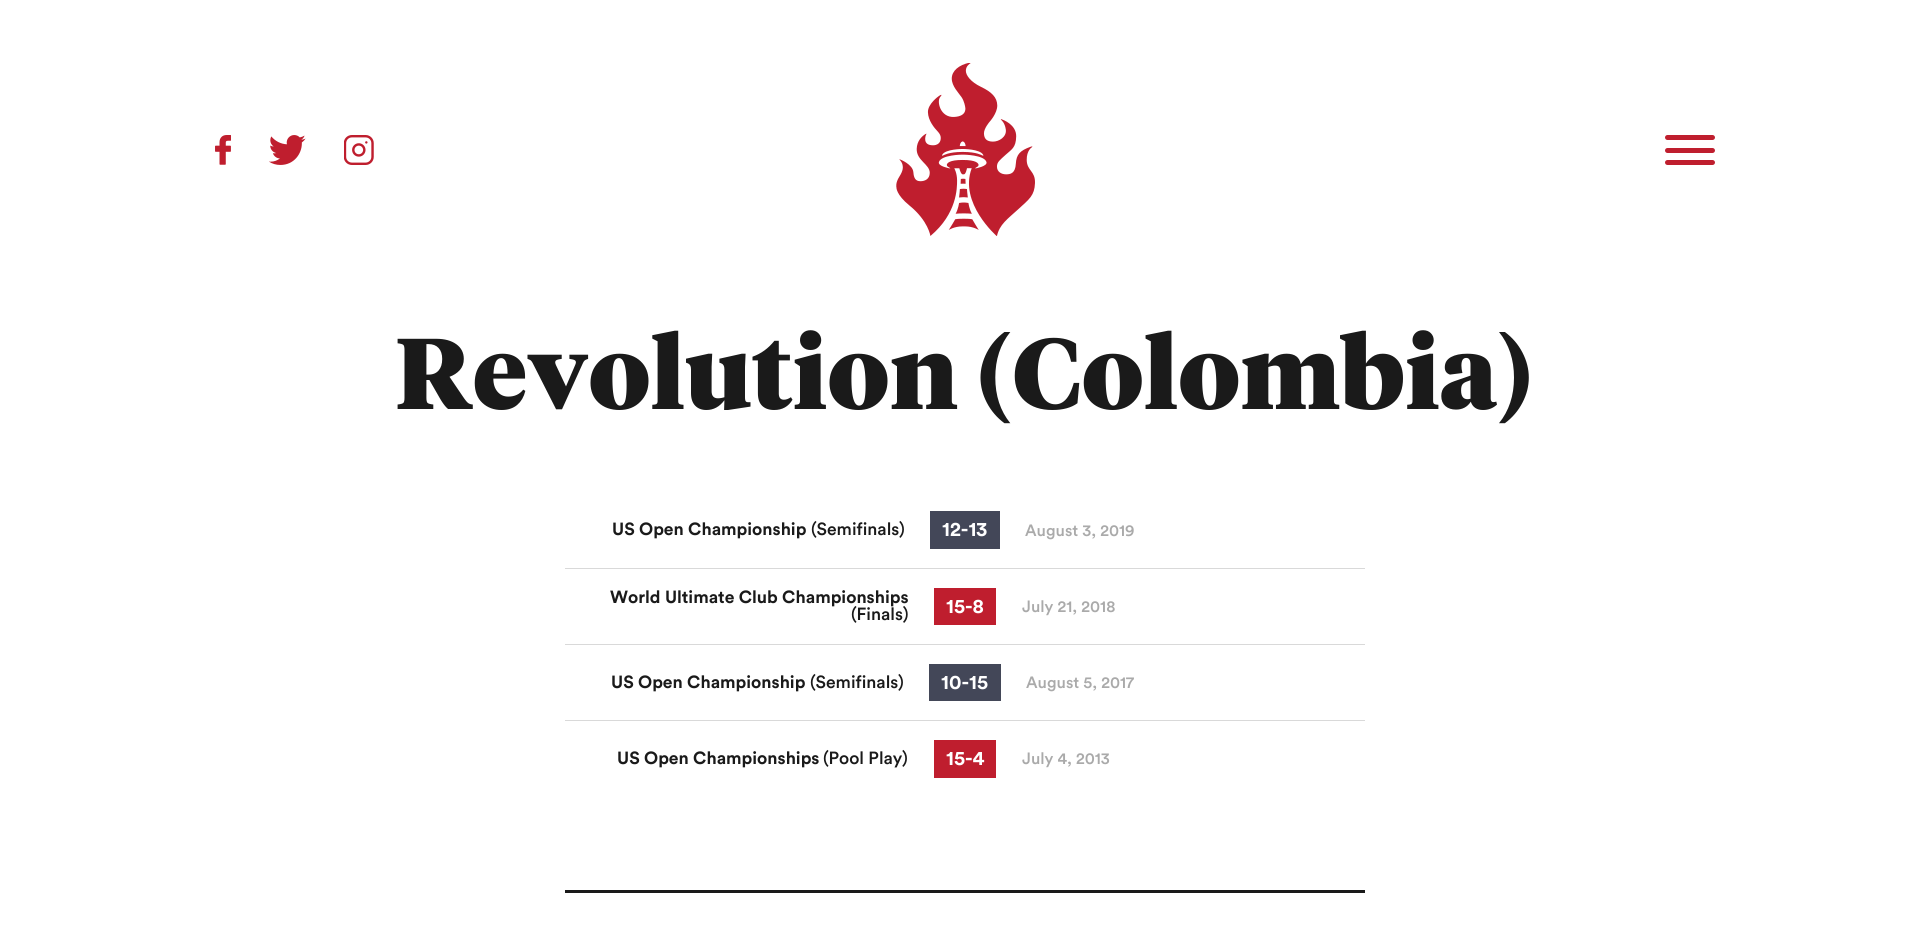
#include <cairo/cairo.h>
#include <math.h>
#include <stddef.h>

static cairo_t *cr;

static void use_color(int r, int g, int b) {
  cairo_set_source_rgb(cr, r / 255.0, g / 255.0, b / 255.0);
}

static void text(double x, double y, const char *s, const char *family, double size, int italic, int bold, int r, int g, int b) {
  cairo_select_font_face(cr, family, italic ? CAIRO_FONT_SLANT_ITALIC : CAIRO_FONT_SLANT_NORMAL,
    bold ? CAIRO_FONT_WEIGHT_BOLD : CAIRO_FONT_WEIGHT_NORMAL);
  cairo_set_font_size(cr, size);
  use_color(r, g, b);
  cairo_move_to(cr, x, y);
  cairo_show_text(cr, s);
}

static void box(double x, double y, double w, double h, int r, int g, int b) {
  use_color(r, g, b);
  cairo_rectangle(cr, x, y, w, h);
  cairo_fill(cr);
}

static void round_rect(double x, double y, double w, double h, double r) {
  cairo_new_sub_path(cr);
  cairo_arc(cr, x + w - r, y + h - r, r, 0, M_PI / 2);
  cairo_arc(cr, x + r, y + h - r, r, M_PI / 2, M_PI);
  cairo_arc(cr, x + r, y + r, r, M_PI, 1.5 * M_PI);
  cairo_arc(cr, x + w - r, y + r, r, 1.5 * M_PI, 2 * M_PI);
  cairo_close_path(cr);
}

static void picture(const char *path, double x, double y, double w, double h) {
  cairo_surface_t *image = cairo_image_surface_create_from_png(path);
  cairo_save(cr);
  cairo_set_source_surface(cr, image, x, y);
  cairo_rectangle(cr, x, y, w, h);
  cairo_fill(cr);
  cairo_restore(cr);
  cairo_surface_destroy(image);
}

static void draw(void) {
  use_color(255, 255, 255);
  cairo_paint(cr);
  picture("img_01.png", 215, 135, 16, 30);
  picture("img_02.png", 269, 135, 37, 30);
  picture("img_03.png", 344, 135, 30, 30);
  picture("img_04.png", 896, 63, 139, 173);
  use_color(191, 30, 46);
  round_rect(1665, 148, 50, 5, 2.5);
  cairo_fill(cr);
  round_rect(1665, 135, 50, 5, 2.5);
  cairo_fill(cr);
  round_rect(1665, 160, 50, 5, 2.5);
  cairo_fill(cr);
  box(930, 511, 70, 38, 67, 71, 88);
  box(565, 568, 800, 1, 217, 217, 217);
  box(934, 588, 62, 37, 191, 30, 46);
  box(565, 644, 800, 1, 217, 217, 217);
  box(929, 664, 72, 37, 67, 71, 88);
  box(565, 720, 800, 1, 217, 217, 217);
  box(934, 740, 62, 38, 191, 30, 46);
  box(565, 890, 800, 3, 26, 26, 26);
  text(395, 409, "Revolution (Colombia)", "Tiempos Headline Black", 100, 0, 0, 26, 26, 26);
  text(612, 535, "US Open Championship", "Circular", 17.5, 0, 1, 26, 26, 26);
  text(811, 535, "(Semifinals)", "Circular Medium", 17.5, 0, 0, 26, 26, 26);
  text(942, 536, "12-13", "Circular", 20, 0, 1, 255, 255, 255);
  text(1025, 536, "August 3, 2019", "Circular Medium", 16.25, 0, 0, 170, 170, 170);
  text(610, 603, "World Ultimate Club Championships", "Circular", 17.5, 0, 1, 26, 26, 26);
  text(851, 620, "(Finals)", "Circular Medium", 17.5, 0, 0, 26, 26, 26);
  text(946, 613, "15-8", "Circular", 20, 0, 1, 255, 255, 255);
  text(1022, 612, "July 21, 2018", "Circular Medium", 16.25, 0, 0, 170, 170, 170);
  text(611, 688, "US Open Championship", "Circular", 17.5, 0, 1, 26, 26, 26);
  text(810, 688, "(Semifinals)", "Circular Medium", 17.5, 0, 0, 26, 26, 26);
  text(941, 689, "10-15", "Circular", 20, 0, 1, 255, 255, 255);
  text(1026, 688, "August 5, 2017", "Circular Medium", 16.25, 0, 0, 170, 170, 170);
  text(617, 764, "US Open Championships", "Circular", 17.5, 0, 1, 26, 26, 26);
  text(823, 764, "(Pool Play)", "Circular Medium", 17.5, 0, 0, 26, 26, 26);
  text(946, 765, "15-4", "Circular", 20, 0, 1, 255, 255, 255);
  text(1022, 764, "July 4, 2013", "Circular Medium", 16.25, 0, 0, 170, 170, 170);
}

int main(void) {
  cairo_surface_t *surface = cairo_image_surface_create(CAIRO_FORMAT_RGB24, 1929, 950);
  cr = cairo_create(surface);
  cairo_font_options_t *options = cairo_font_options_create();
  cairo_font_options_set_hint_metrics(options, CAIRO_HINT_METRICS_OFF);
  cairo_font_options_set_hint_style(options, CAIRO_HINT_STYLE_NONE);
  cairo_set_font_options(cr, options);
  cairo_set_miter_limit(cr, 4);
  draw();
  cairo_surface_write_to_png(surface, "out.png");
  cairo_font_options_destroy(options);
  cairo_destroy(cr);
  cairo_surface_destroy(surface);
  return 0;
}
